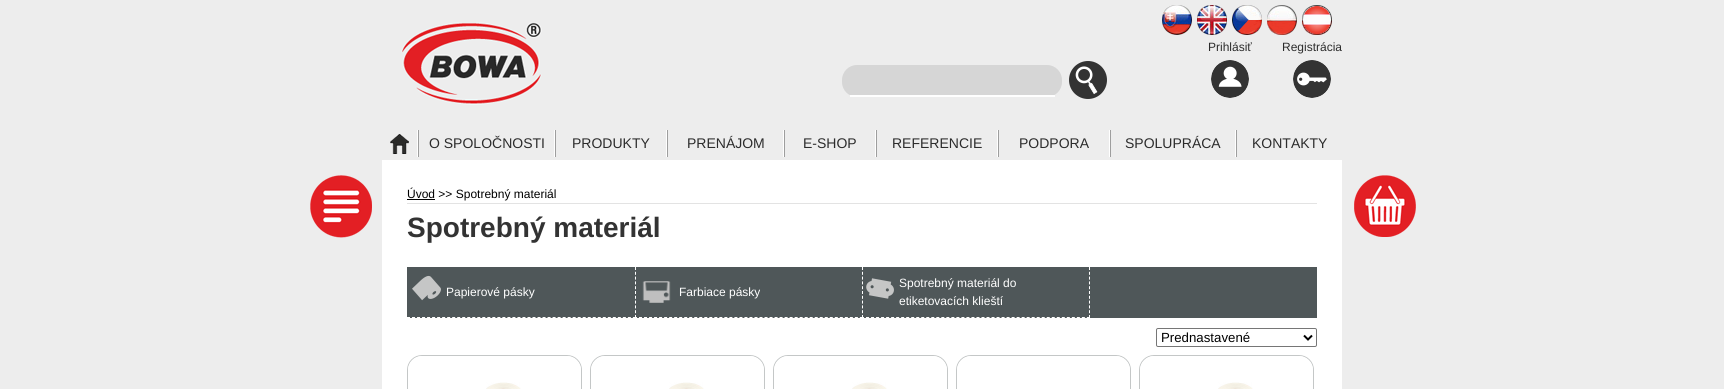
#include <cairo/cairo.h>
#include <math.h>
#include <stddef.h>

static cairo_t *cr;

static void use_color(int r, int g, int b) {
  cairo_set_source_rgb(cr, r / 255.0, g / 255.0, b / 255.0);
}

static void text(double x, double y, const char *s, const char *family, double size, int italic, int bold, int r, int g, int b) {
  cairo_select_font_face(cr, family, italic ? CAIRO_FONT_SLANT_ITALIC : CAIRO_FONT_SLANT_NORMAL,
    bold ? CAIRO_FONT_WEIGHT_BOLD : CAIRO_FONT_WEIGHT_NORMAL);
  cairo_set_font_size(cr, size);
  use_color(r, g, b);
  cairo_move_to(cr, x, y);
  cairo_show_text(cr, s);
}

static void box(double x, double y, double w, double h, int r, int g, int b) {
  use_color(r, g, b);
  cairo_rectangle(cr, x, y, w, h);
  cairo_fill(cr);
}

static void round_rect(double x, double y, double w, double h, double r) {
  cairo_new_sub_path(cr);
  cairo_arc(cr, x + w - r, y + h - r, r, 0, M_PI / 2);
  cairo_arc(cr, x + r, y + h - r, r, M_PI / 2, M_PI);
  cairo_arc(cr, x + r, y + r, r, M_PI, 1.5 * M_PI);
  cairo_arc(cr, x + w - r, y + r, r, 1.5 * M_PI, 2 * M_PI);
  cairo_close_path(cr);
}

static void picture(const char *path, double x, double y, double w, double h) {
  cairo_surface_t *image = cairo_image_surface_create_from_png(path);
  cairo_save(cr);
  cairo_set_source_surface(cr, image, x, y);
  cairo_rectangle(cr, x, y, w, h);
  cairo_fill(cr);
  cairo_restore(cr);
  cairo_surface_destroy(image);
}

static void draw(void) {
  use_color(237, 237, 237);
  cairo_paint(cr);
  picture("img_01.png", 1162, 5, 30, 30);
  picture("img_02.png", 1197, 5, 30, 30);
  picture("img_03.png", 1232, 5, 30, 30);
  picture("img_04.png", 1267, 5, 30, 30);
  picture("img_05.png", 1302, 5, 30, 30);
  picture("img_06.png", 401, 22, 141, 83);
  picture("img_07.png", 1211, 60, 38, 38);
  picture("img_08.png", 1293, 60, 38, 38);
  picture("img_09.png", 1354, 175, 62, 62);
  use_color(214, 214, 214);
  round_rect(842, 65, 220, 32, 15);
  cairo_fill(cr);
  box(850, 95, 205, 2, 254, 254, 254);
  picture("img_10.png", 1069, 61, 38, 38);
  box(417, 130, 1, 27, 255, 255, 255);
  picture("img_11.png", 390, 134, 19, 20);
  box(554, 130, 1, 27, 255, 255, 255);
  box(418, 130, 1, 27, 158, 158, 158);
  box(666, 130, 1, 27, 255, 255, 255);
  box(555, 130, 1, 27, 158, 158, 158);
  box(783, 130, 1, 27, 255, 255, 255);
  box(667, 130, 1, 27, 158, 158, 158);
  box(875, 130, 1, 27, 255, 255, 255);
  box(784, 130, 1, 27, 158, 158, 158);
  box(997, 130, 1, 27, 255, 255, 255);
  box(876, 130, 1, 27, 158, 158, 158);
  box(1109, 130, 1, 27, 255, 255, 255);
  box(998, 130, 1, 27, 158, 158, 158);
  box(1235, 130, 1, 27, 255, 255, 255);
  box(1110, 130, 1, 27, 158, 158, 158);
  box(1236, 130, 1, 27, 158, 158, 158);
  picture("img_12.png", 310, 175, 62, 63);
  box(382, 160, 960, 229, 255, 255, 255);
  box(407, 203, 910, 1, 227, 227, 227);
  box(407, 199, 28, 1, 0, 0, 0);
  box(407, 267, 910, 51, 79, 87, 89);
  cairo_new_path(cr);
  cairo_move_to(cr, 635.5, 267);
  cairo_line_to(cr, 635.5, 318);
  use_color(255, 255, 255);
  cairo_set_line_width(cr, 1);
  cairo_set_dash(cr, (double[]){3, 1.8}, 2, 0);
  cairo_stroke(cr);
  cairo_new_path(cr);
  cairo_move_to(cr, 407, 317.5);
  cairo_line_to(cr, 636, 317.5);
  cairo_set_dash(cr, (double[]){3, 2.02}, 2, 0);
  cairo_stroke(cr);
  picture("img_13.png", 412, 275, 29, 26);
  cairo_new_path(cr);
  cairo_move_to(cr, 862.5, 267);
  cairo_line_to(cr, 862.5, 318);
  cairo_set_dash(cr, (double[]){3, 1.8}, 2, 0);
  cairo_stroke(cr);
  cairo_new_path(cr);
  cairo_move_to(cr, 634, 317.5);
  cairo_line_to(cr, 863, 317.5);
  cairo_set_dash(cr, (double[]){3, 2.02}, 2, 0);
  cairo_stroke(cr);
  picture("img_14.png", 642, 281, 29, 22);
  cairo_new_path(cr);
  cairo_move_to(cr, 1089.5, 267);
  cairo_line_to(cr, 1089.5, 318);
  cairo_set_dash(cr, (double[]){3, 1.8}, 2, 0);
  cairo_stroke(cr);
  cairo_new_path(cr);
  cairo_move_to(cr, 861, 317.5);
  cairo_line_to(cr, 1090, 317.5);
  cairo_set_dash(cr, (double[]){3, 2.02}, 2, 0);
  cairo_stroke(cr);
  picture("img_15.png", 866, 278, 28, 21);
  round_rect(1156.5, 328.5, 160, 18, 1.5);
  use_color(118, 118, 118);
  cairo_set_dash(cr, NULL, 0, 0);
  cairo_stroke(cr);
  cairo_new_path(cr);
  cairo_move_to(cr, 1304, 335.5);
  cairo_line_to(cr, 1308, 339.5);
  cairo_line_to(cr, 1312, 335.5);
  use_color(0, 0, 0);
  cairo_set_line_width(cr, 2);
  cairo_stroke(cr);
  round_rect(407.5, 355.5, 174, 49, 14.5);
  use_color(196, 199, 199);
  cairo_set_line_width(cr, 1);
  cairo_stroke(cr);
  use_color(255, 255, 255);
  cairo_new_path(cr);
  cairo_move_to(cr, 422, 356);
  cairo_line_to(cr, 567, 356);
  cairo_curve_to(cr, 574.5, 356, 581, 362.5, 581, 370);
  cairo_line_to(cr, 581, 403);
  cairo_line_to(cr, 408, 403);
  cairo_line_to(cr, 408, 370);
  cairo_curve_to(cr, 408, 362.5, 414.5, 356, 422, 356);
  cairo_close_path(cr);
  cairo_fill(cr);
  picture("img_16.png", 486, 382, 35, 7);
  round_rect(590.5, 355.5, 174, 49, 14.5);
  use_color(196, 199, 199);
  cairo_stroke(cr);
  use_color(255, 255, 255);
  cairo_new_path(cr);
  cairo_move_to(cr, 605, 356);
  cairo_line_to(cr, 750, 356);
  cairo_curve_to(cr, 757.5, 356, 764, 362.5, 764, 370);
  cairo_line_to(cr, 764, 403);
  cairo_line_to(cr, 591, 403);
  cairo_line_to(cr, 591, 370);
  cairo_curve_to(cr, 591, 362.5, 597.5, 356, 605, 356);
  cairo_close_path(cr);
  cairo_fill(cr);
  picture("img_16.png", 669, 382, 35, 7);
  round_rect(773.5, 355.5, 174, 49, 14.5);
  use_color(196, 199, 199);
  cairo_stroke(cr);
  use_color(255, 255, 255);
  cairo_new_path(cr);
  cairo_move_to(cr, 788, 356);
  cairo_line_to(cr, 933, 356);
  cairo_curve_to(cr, 940.5, 356, 947, 362.5, 947, 370);
  cairo_line_to(cr, 947, 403);
  cairo_line_to(cr, 774, 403);
  cairo_line_to(cr, 774, 370);
  cairo_curve_to(cr, 774, 362.5, 780.5, 356, 788, 356);
  cairo_close_path(cr);
  cairo_fill(cr);
  picture("img_16.png", 852, 382, 35, 7);
  round_rect(956.5, 355.5, 174, 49, 14.5);
  use_color(196, 199, 199);
  cairo_stroke(cr);
  use_color(255, 255, 255);
  cairo_new_path(cr);
  cairo_move_to(cr, 971, 356);
  cairo_line_to(cr, 1116, 356);
  cairo_curve_to(cr, 1123.5, 356, 1130, 362.5, 1130, 370);
  cairo_line_to(cr, 1130, 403);
  cairo_line_to(cr, 957, 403);
  cairo_line_to(cr, 957, 370);
  cairo_curve_to(cr, 957, 362.5, 963.5, 356, 971, 356);
  cairo_close_path(cr);
  cairo_fill(cr);
  round_rect(1139.5, 355.5, 174, 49, 14.5);
  use_color(196, 199, 199);
  cairo_stroke(cr);
  use_color(255, 255, 255);
  cairo_new_path(cr);
  cairo_move_to(cr, 1154, 356);
  cairo_line_to(cr, 1299, 356);
  cairo_curve_to(cr, 1306.5, 356, 1313, 362.5, 1313, 370);
  cairo_line_to(cr, 1313, 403);
  cairo_line_to(cr, 1140, 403);
  cairo_line_to(cr, 1140, 370);
  cairo_curve_to(cr, 1140, 362.5, 1146.5, 356, 1154, 356);
  cairo_close_path(cr);
  cairo_fill(cr);
  picture("img_16.png", 1218, 382, 35, 7);
  text(1208, 51, "Prihlásiť", "Liberation Sans", 12, 0, 0, 44, 44, 44);
  text(1282, 51, "Registrácia", "Liberation Sans", 12, 0, 0, 44, 44, 44);
  text(429, 148, "O SPOLOČNOSTI", "Liberation Sans", 14, 0, 0, 44, 44, 44);
  text(572, 148, "PRODUKTY", "Liberation Sans", 14, 0, 0, 44, 44, 44);
  text(687, 148, "PRENÁJOM", "Liberation Sans", 14, 0, 0, 44, 44, 44);
  text(803, 148, "E-SHOP", "Liberation Sans", 14, 0, 0, 44, 44, 44);
  text(892, 148, "REFERENCIE", "Liberation Sans", 14, 0, 0, 44, 44, 44);
  text(1019, 148, "PODPORA", "Liberation Sans", 14, 0, 0, 44, 44, 44);
  text(1125, 148, "SPOLUPRÁCA", "Liberation Sans", 14, 0, 0, 44, 44, 44);
  text(1252, 148, "KONTAKTY", "Liberation Sans", 14, 0, 0, 44, 44, 44);
  text(407, 198, "Úvod >> Spotrebný materiál", "Liberation Sans", 12, 0, 0, 0, 0, 0);
  text(407, 237, "Spotrebný materiál", "Liberation Sans", 28, 0, 1, 51, 51, 51);
  text(446, 296, "Papierové pásky", "Liberation Sans", 12, 0, 0, 255, 255, 255);
  text(679, 296, "Farbiace pásky", "Liberation Sans", 12, 0, 0, 255, 255, 255);
  text(899, 287, "Spotrebný materiál do", "Liberation Sans", 12, 0, 0, 255, 255, 255);
  text(899, 305, "etiketovacích klieští", "Liberation Sans", 12, 0, 0, 255, 255, 255);
  text(1161, 342, "Prednastavené", "Liberation Sans", 13.25, 0, 0, 0, 0, 0);
}

int main(void) {
  cairo_surface_t *surface = cairo_image_surface_create(CAIRO_FORMAT_RGB24, 1724, 389);
  cr = cairo_create(surface);
  cairo_font_options_t *options = cairo_font_options_create();
  cairo_font_options_set_hint_metrics(options, CAIRO_HINT_METRICS_OFF);
  cairo_font_options_set_hint_style(options, CAIRO_HINT_STYLE_NONE);
  cairo_set_font_options(cr, options);
  cairo_set_miter_limit(cr, 4);
  draw();
  cairo_surface_write_to_png(surface, "out.png");
  cairo_font_options_destroy(options);
  cairo_destroy(cr);
  cairo_surface_destroy(surface);
  return 0;
}
